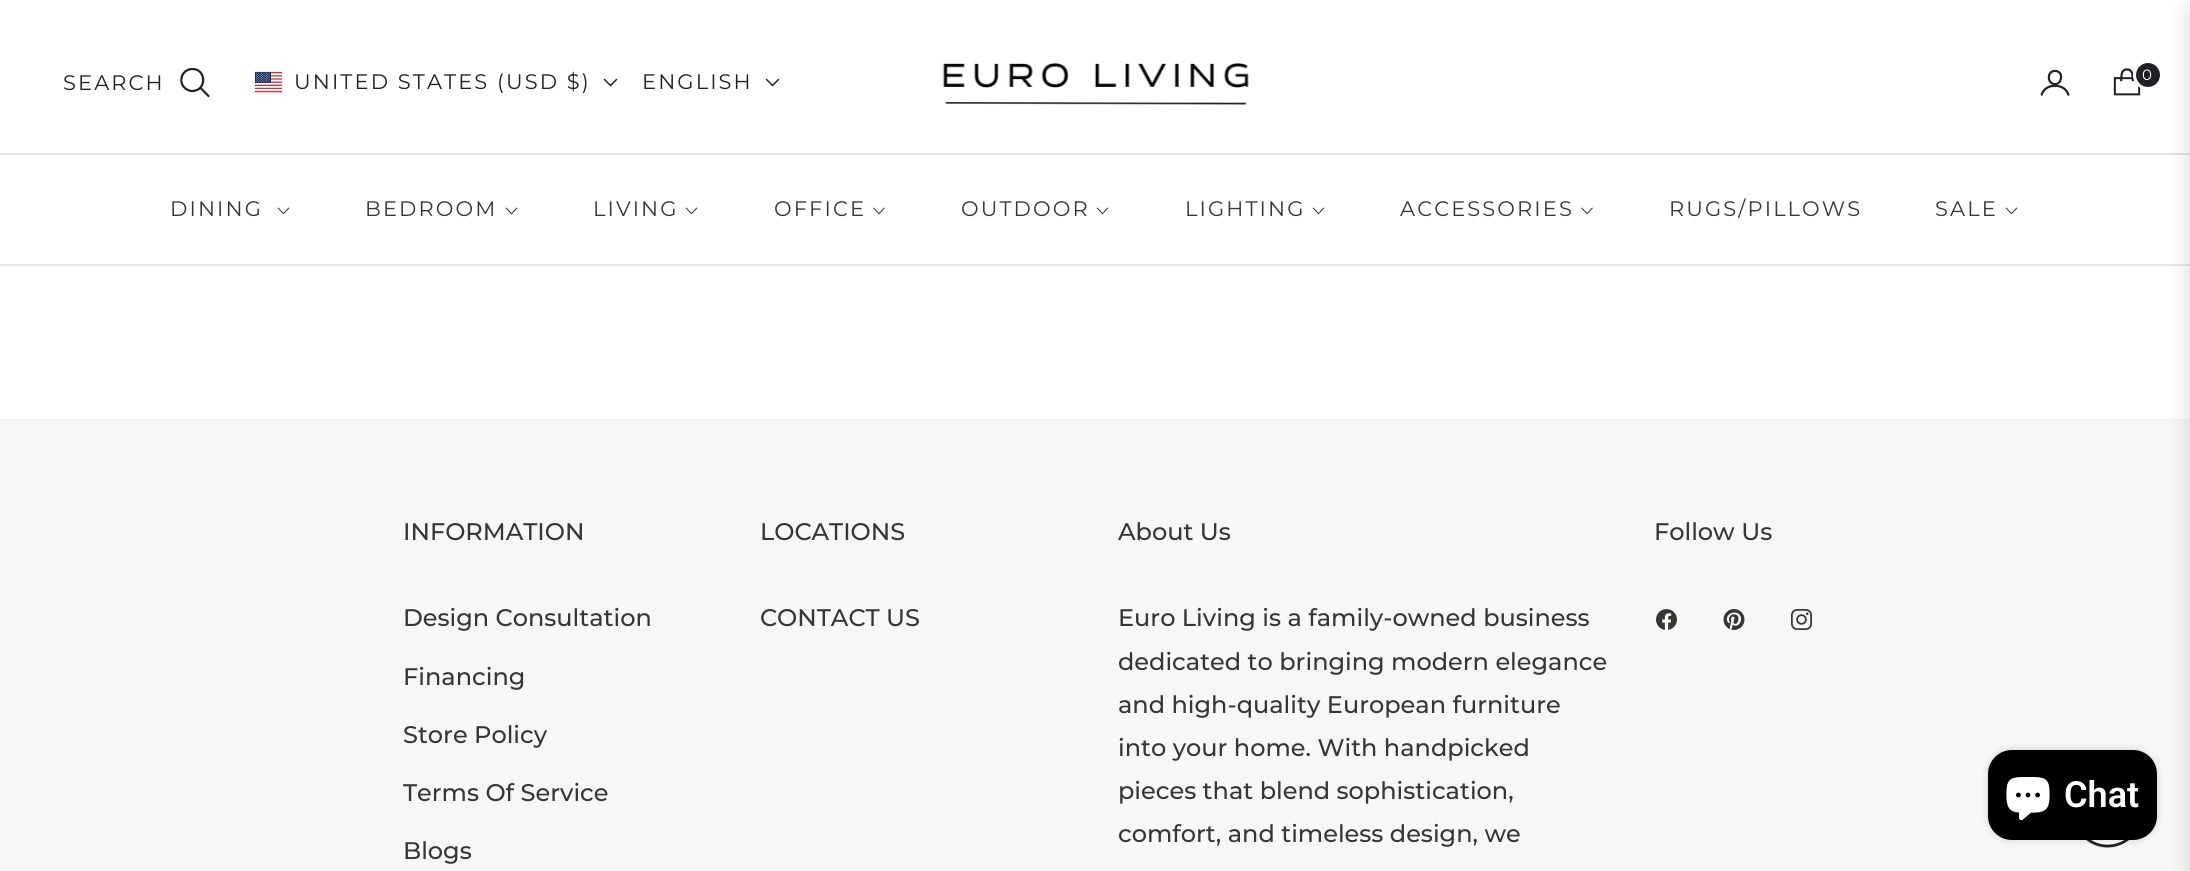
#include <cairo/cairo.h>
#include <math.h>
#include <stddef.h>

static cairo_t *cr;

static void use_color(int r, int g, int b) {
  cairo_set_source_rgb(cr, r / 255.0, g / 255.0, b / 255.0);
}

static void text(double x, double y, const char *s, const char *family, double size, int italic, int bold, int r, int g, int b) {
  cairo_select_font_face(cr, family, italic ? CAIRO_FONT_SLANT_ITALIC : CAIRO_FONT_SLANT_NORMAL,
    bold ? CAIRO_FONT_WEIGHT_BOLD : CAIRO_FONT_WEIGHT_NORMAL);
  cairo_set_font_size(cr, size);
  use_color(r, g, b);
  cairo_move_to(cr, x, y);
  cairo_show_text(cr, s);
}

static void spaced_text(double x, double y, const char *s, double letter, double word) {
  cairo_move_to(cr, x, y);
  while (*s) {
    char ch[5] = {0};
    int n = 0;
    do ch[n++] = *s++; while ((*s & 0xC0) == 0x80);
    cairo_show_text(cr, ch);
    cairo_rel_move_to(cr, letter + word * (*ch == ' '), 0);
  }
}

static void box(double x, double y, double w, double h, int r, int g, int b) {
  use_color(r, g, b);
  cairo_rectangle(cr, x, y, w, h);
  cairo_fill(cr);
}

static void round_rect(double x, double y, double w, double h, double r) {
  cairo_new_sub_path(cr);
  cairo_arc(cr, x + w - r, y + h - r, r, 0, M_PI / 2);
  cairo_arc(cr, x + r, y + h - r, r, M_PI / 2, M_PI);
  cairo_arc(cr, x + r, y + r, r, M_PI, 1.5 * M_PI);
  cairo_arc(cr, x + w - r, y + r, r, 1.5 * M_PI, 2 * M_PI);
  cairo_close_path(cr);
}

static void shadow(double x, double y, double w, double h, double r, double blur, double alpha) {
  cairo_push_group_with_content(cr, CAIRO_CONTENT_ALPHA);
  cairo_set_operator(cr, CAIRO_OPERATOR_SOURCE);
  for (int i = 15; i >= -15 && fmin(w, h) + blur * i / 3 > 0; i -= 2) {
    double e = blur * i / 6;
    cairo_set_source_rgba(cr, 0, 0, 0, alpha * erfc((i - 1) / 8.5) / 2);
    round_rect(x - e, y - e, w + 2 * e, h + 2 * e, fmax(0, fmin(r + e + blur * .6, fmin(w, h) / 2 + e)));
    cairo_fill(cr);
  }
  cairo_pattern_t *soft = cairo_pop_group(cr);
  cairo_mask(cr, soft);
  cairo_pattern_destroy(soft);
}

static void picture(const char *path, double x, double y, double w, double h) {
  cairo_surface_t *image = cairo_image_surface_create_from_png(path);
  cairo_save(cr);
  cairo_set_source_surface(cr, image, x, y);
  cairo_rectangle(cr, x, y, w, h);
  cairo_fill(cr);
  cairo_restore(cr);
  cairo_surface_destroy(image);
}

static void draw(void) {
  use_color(255, 255, 255);
  cairo_paint(cr);
  cairo_rectangle(cr, 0, 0, 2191, 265);
  use_color(230, 230, 230);
  cairo_stroke(cr);
  box(0, 0, 2190, 264, 255, 255, 255);
  cairo_new_path(cr);
  cairo_move_to(cr, 192.5, 69);
  cairo_curve_to(cr, 181, 69, 177, 84, 187, 89.5);
  cairo_curve_to(cr, 188.5, 90.5, 190.5, 91, 192.5, 91);
  cairo_curve_to(cr, 207, 90.5, 206.5, 69, 192.5, 69);
  cairo_close_path(cr);
  use_color(32, 32, 37);
  cairo_set_line_width(cr, 2.2);
  cairo_stroke(cr);
  cairo_new_path(cr);
  cairo_move_to(cr, 201, 88.5);
  cairo_line_to(cr, 208.5, 96);
  cairo_set_line_cap(cr, CAIRO_LINE_CAP_ROUND);
  cairo_stroke(cr);
  use_color(0, 0, 0);
  shadow(255, 72, 27, 21, 0, 1, 0.2);
  picture("img_01.png", 255, 72, 27, 21);
  picture("img_02.png", 603, 78, 15, 9);
  picture("img_02.png", 765, 78, 15, 9);
  picture("img_03.png", 942, 63, 307, 42);
  cairo_new_path(cr);
  cairo_move_to(cr, 2061, 77.5);
  cairo_curve_to(cr, 2060.5, 87.5, 2047.5, 85.5, 2049, 76);
  cairo_curve_to(cr, 2050, 68.5, 2062, 69.5, 2061, 77.5);
  cairo_close_path(cr);
  use_color(32, 32, 37);
  cairo_set_line_join(cr, CAIRO_LINE_JOIN_ROUND);
  cairo_stroke(cr);
  cairo_new_path(cr);
  cairo_move_to(cr, 2041.5, 95.5);
  cairo_curve_to(cr, 2044, 82.5, 2066, 82.5, 2068.5, 95.5);
  cairo_set_line_cap(cr, CAIRO_LINE_CAP_BUTT);
  cairo_set_line_join(cr, CAIRO_LINE_JOIN_MITER);
  cairo_stroke(cr);
  picture("img_04.png", 2113, 68, 28, 28);
  cairo_arc(cr, 2148, 75, 13.5, 0, 2 * M_PI);
  cairo_fill_preserve(cr);
  use_color(255, 255, 255);
  cairo_set_line_width(cr, 3);
  cairo_stroke(cr);
  box(0, 153, 2190, 2, 229, 229, 229);
  box(0, 419, 2190, 452, 247, 247, 247);
  use_color(0, 0, 0);
  shadow(2190, 12, 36, 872, 0, 12, 0.15);
  picture("img_05.png", 277, 207, 13, 8);
  picture("img_05.png", 505, 207, 13, 8);
  picture("img_05.png", 685, 207, 13, 8);
  picture("img_06.png", 873, 207, 12, 8);
  picture("img_05.png", 1096, 207, 13, 8);
  picture("img_05.png", 1312, 207, 13, 8);
  picture("img_06.png", 1581, 207, 12, 8);
  picture("img_05.png", 2005, 207, 13, 8);
  picture("img_07.png", 1656, 609, 21, 21);
  picture("img_08.png", 1723, 609, 22, 21);
  picture("img_09.png", 1791, 609, 21, 21);
  use_color(255, 255, 255);
  cairo_arc(cr, 2107.5, 813.5, 34.5, 0, 2 * M_PI);
  cairo_fill(cr);
  cairo_arc(cr, 2107.5, 813.5, 33, 0, 2 * M_PI);
  cairo_set_source_rgba(cr, 0.22, 0.212, 0.2, 0.2);
  cairo_stroke(cr);
  cairo_new_path(cr);
  cairo_move_to(cr, 2107.5, 780);
  cairo_curve_to(cr, 2126, 780, 2140.5, 794.5, 2140.5, 813);
  cairo_curve_to(cr, 2140.5, 831.5, 2126, 846, 2107.5, 846);
  cairo_curve_to(cr, 2095, 846, 2084, 839, 2078.5, 828.5);
  use_color(34, 34, 34);
  cairo_set_line_width(cr, 2.7);
  cairo_stroke(cr);
  use_color(0, 0, 0);
  shadow(1988, 750, 169, 90, 24, 4, 0.15);
  use_color(0, 0, 0);
  round_rect(1988, 750, 169, 90, 24);
  cairo_fill(cr);
  picture("img_10.png", 2006, 777, 44, 44);
  cairo_select_font_face(cr, "Montserrat", CAIRO_FONT_SLANT_NORMAL, CAIRO_FONT_WEIGHT_NORMAL);
  cairo_set_font_size(cr, 21);
  use_color(32, 32, 37);
  spaced_text(63, 90, "SEARCH", 2.1, 0);
  spaced_text(294, 89, "UNITED STATES (USD $)", 2.1, 0);
  spaced_text(642, 89, "ENGLISH", 2.1, 0);
  cairo_set_font_size(cr, 15);
  use_color(255, 255, 255);
  spaced_text(2142, 80, "0", 2.1, 0);
  cairo_set_font_size(cr, 21);
  use_color(56, 54, 51);
  spaced_text(170, 216, "DINING", 2.1, 0);
  spaced_text(365, 216, "BEDROOM", 2.1, 0);
  spaced_text(593, 216, "LIVING", 2.1, 0);
  spaced_text(774, 216, "OFFICE", 2.1, 0);
  spaced_text(961, 216, "OUTDOOR", 2.1, 0);
  spaced_text(1185, 216, "LIGHTING", 2.1, 0);
  spaced_text(1400, 216, "ACCESSORIES", 2.1, 0);
  spaced_text(1669, 216, "RUGS/PILLOWS", 2.1, 0);
  spaced_text(1935, 216, "SALE", 2.1, 0);
  text(403, 540, "INFORMATION", "Montserrat Medium", 24, 0, 0, 56, 54, 51);
  text(403, 626, "Design Consultation", "Montserrat Medium", 24, 0, 0, 56, 54, 51);
  text(403, 685, "Financing", "Montserrat Medium", 24, 0, 0, 56, 54, 51);
  text(403, 743, "Store Policy", "Montserrat Medium", 24, 0, 0, 56, 54, 51);
  text(403, 801, "Terms Of Service", "Montserrat Medium", 24, 0, 0, 56, 54, 51);
  text(403, 859, "Blogs", "Montserrat Medium", 24, 0, 0, 56, 54, 51);
  text(760, 540, "LOCATIONS", "Montserrat Medium", 24, 0, 0, 56, 54, 51);
  text(760, 626, "CONTACT US", "Montserrat Medium", 24, 0, 0, 56, 54, 51);
  text(1118, 540, "About Us", "Montserrat Medium", 24, 0, 0, 56, 54, 51);
  text(1118, 626, "Euro Living is a family-owned business", "Montserrat Medium", 24, 0, 0, 56, 54, 51);
  text(1118, 670, "dedicated to bringing modern elegance", "Montserrat Medium", 24, 0, 0, 56, 54, 51);
  text(1118, 713, "and high-quality European furniture", "Montserrat Medium", 24, 0, 0, 56, 54, 51);
  text(1118, 756, "into your home. With handpicked", "Montserrat Medium", 24, 0, 0, 56, 54, 51);
  text(1118, 799, "pieces that blend sophistication,", "Montserrat Medium", 24, 0, 0, 56, 54, 51);
  text(1118, 842, "comfort, and timeless design, we", "Montserrat Medium", 24, 0, 0, 56, 54, 51);
  text(1654, 540, "Follow Us", "Montserrat Medium", 24, 0, 0, 56, 54, 51);
  text(2064, 807, "Chat", "Roboto SemiBold", 36, 0, 0, 255, 255, 255);
}

int main(void) {
  cairo_surface_t *surface = cairo_image_surface_create(CAIRO_FORMAT_RGB24, 2190, 871);
  cr = cairo_create(surface);
  cairo_font_options_t *options = cairo_font_options_create();
  cairo_font_options_set_hint_metrics(options, CAIRO_HINT_METRICS_OFF);
  cairo_font_options_set_hint_style(options, CAIRO_HINT_STYLE_NONE);
  cairo_set_font_options(cr, options);
  cairo_set_miter_limit(cr, 4);
  draw();
  cairo_surface_write_to_png(surface, "out.png");
  cairo_font_options_destroy(options);
  cairo_destroy(cr);
  cairo_surface_destroy(surface);
  return 0;
}
